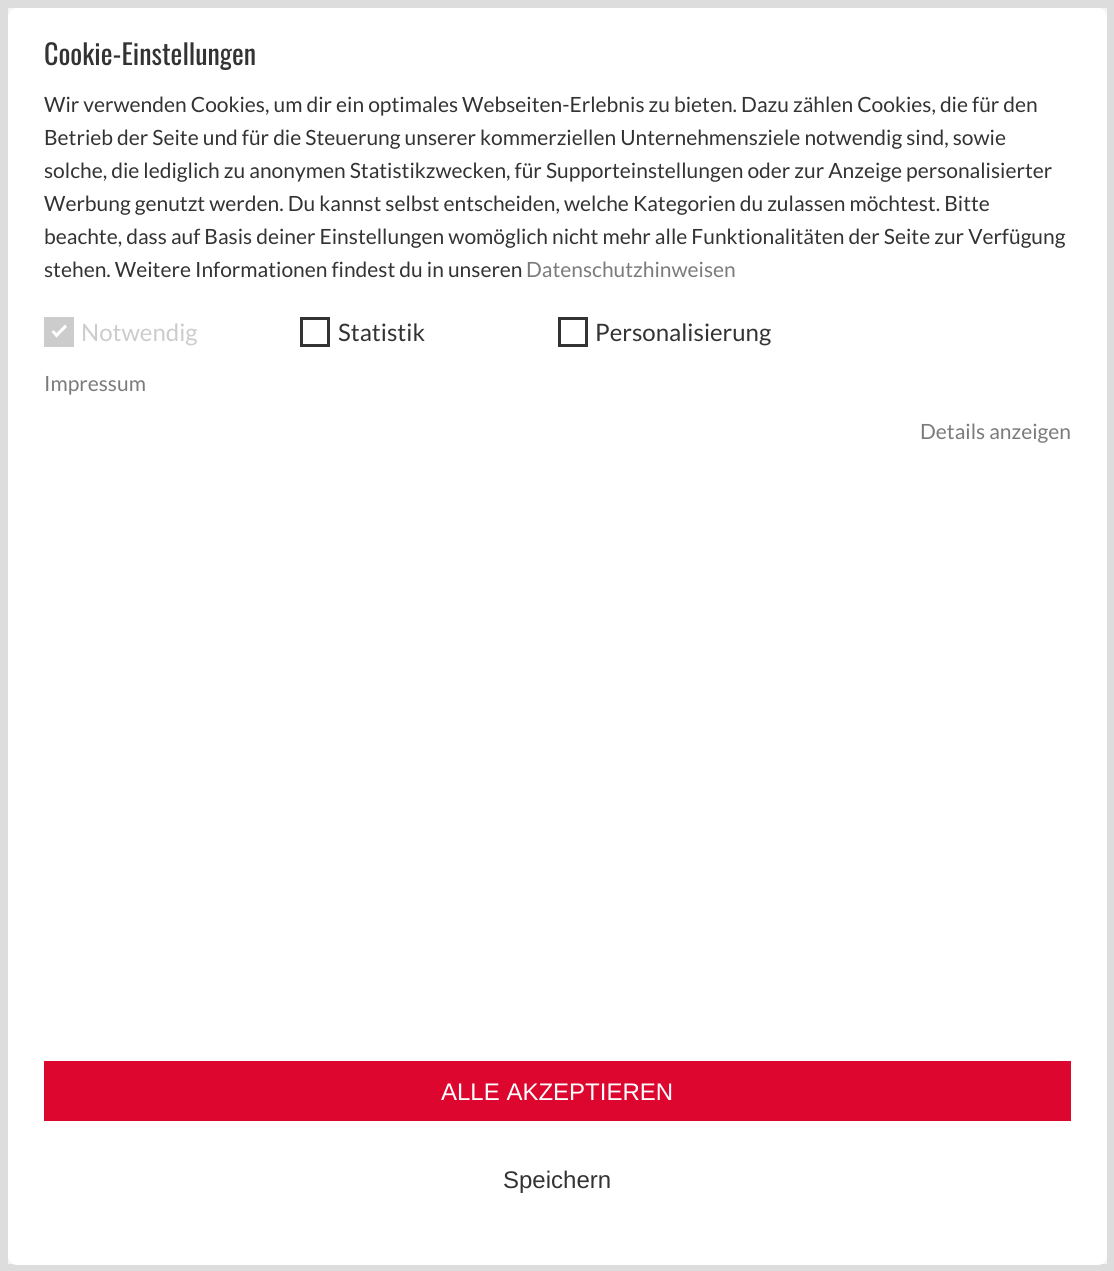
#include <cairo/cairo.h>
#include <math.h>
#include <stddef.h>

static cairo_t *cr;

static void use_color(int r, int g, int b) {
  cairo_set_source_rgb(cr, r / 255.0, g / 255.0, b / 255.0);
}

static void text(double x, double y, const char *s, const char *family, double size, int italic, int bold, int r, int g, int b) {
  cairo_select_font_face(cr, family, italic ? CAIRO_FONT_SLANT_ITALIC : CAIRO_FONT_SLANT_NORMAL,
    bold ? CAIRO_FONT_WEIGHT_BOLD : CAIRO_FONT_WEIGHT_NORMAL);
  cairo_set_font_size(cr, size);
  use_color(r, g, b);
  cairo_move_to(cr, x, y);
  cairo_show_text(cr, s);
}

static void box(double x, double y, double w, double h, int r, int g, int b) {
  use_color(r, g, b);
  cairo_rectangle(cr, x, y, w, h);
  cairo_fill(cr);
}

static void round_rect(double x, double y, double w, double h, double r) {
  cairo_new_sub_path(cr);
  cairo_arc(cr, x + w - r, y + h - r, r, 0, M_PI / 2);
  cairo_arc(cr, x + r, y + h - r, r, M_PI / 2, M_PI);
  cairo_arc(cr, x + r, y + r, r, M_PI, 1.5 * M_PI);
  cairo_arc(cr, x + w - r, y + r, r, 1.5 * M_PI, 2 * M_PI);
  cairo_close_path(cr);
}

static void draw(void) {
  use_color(244, 244, 244);
  cairo_paint(cr);
  cairo_rectangle(cr, 4, 4, 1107, 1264);
  use_color(221, 221, 221);
  cairo_set_line_width(cr, 8);
  cairo_stroke(cr);
  use_color(255, 255, 255);
  round_rect(8, 8, 1099, 1257, 9);
  cairo_fill(cr);
  box(44, 317, 30, 30, 204, 204, 204);
  use_color(255, 255, 255);
  cairo_new_path(cr);
  cairo_move_to(cr, 65, 324.5);
  cairo_line_to(cr, 67, 327);
  cairo_line_to(cr, 56.5, 337.5);
  cairo_line_to(cr, 54.5, 335);
  cairo_close_path(cr);
  cairo_fill(cr);
  cairo_new_path(cr);
  cairo_move_to(cr, 53.5, 330);
  cairo_line_to(cr, 58.5, 335);
  cairo_line_to(cr, 56.5, 337.5);
  cairo_line_to(cr, 51.5, 332);
  cairo_close_path(cr);
  cairo_fill(cr);
  cairo_rectangle(cr, 301.5, 318.5, 27, 27);
  use_color(51, 51, 51);
  cairo_set_line_width(cr, 3);
  cairo_stroke(cr);
  cairo_rectangle(cr, 559.5, 318.5, 27, 27);
  cairo_stroke(cr);
  box(44, 1061, 1027, 60, 220, 6, 46);
  text(44, 65, "Cookie-Einstellungen", "Oswald", 28, 0, 0, 51, 51, 51);
  text(44, 112, "Wir verwenden Cookies, um dir ein optimales Webseiten-Erlebnis zu bieten. Dazu zählen Cookies, die für den", "Lato", 21, 0, 0, 51, 51, 51);
  text(44, 145, "Betrieb der Seite und für die Steuerung unserer kommerziellen Unternehmensziele notwendig sind, sowie", "Lato", 21, 0, 0, 51, 51, 51);
  text(44, 178, "solche, die lediglich zu anonymen Statistikzwecken, für Supporteinstellungen oder zur Anzeige personalisierter", "Lato", 21, 0, 0, 51, 51, 51);
  text(44, 211, "Werbung genutzt werden. Du kannst selbst entscheiden, welche Kategorien du zulassen möchtest. Bitte", "Lato", 21, 0, 0, 51, 51, 51);
  text(44, 244, "beachte, dass auf Basis deiner Einstellungen womöglich nicht mehr alle Funktionalitäten der Seite zur Verfügung", "Lato", 21, 0, 0, 51, 51, 51);
  text(44, 277, "stehen. Weitere Informationen findest du in unseren", "Lato", 21, 0, 0, 51, 51, 51);
  text(526, 277, "Datenschutzhinweisen", "Lato", 21, 0, 0, 123, 123, 123);
  text(81, 341, "Notwendig", "Lato", 24, 0, 0, 204, 204, 204);
  text(338, 341, "Statistik", "Lato", 24, 0, 0, 51, 51, 51);
  text(595, 341, "Personalisierung", "Lato", 24, 0, 0, 51, 51, 51);
  text(44, 391, "Impressum", "Lato", 21, 0, 0, 123, 123, 123);
  text(920, 439, "Details anzeigen", "Lato", 21, 0, 0, 123, 123, 123);
  text(441, 1100, "ALLE AKZEPTIEREN", "Liberation Sans", 24, 0, 0, 255, 255, 255);
  text(503, 1188, "Speichern", "Liberation Sans", 24, 0, 0, 51, 51, 51);
}

int main(void) {
  cairo_surface_t *surface = cairo_image_surface_create(CAIRO_FORMAT_RGB24, 1114, 1271);
  cr = cairo_create(surface);
  cairo_font_options_t *options = cairo_font_options_create();
  cairo_font_options_set_hint_metrics(options, CAIRO_HINT_METRICS_OFF);
  cairo_font_options_set_hint_style(options, CAIRO_HINT_STYLE_NONE);
  cairo_set_font_options(cr, options);
  cairo_set_miter_limit(cr, 4);
  draw();
  cairo_surface_write_to_png(surface, "out.png");
  cairo_font_options_destroy(options);
  cairo_destroy(cr);
  cairo_surface_destroy(surface);
  return 0;
}
